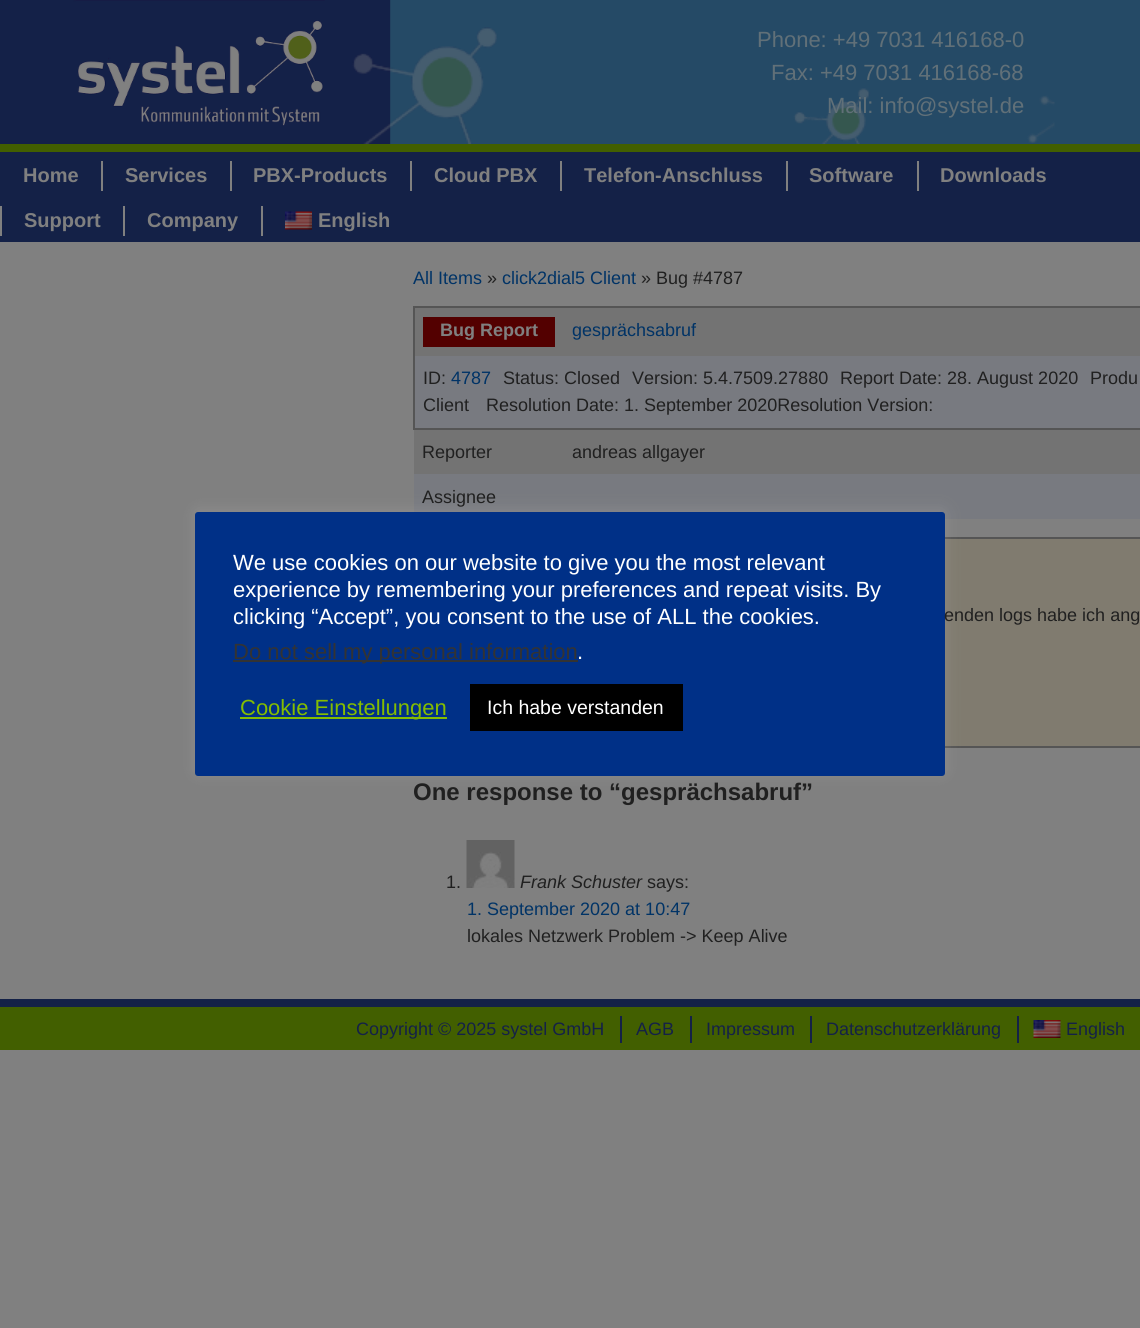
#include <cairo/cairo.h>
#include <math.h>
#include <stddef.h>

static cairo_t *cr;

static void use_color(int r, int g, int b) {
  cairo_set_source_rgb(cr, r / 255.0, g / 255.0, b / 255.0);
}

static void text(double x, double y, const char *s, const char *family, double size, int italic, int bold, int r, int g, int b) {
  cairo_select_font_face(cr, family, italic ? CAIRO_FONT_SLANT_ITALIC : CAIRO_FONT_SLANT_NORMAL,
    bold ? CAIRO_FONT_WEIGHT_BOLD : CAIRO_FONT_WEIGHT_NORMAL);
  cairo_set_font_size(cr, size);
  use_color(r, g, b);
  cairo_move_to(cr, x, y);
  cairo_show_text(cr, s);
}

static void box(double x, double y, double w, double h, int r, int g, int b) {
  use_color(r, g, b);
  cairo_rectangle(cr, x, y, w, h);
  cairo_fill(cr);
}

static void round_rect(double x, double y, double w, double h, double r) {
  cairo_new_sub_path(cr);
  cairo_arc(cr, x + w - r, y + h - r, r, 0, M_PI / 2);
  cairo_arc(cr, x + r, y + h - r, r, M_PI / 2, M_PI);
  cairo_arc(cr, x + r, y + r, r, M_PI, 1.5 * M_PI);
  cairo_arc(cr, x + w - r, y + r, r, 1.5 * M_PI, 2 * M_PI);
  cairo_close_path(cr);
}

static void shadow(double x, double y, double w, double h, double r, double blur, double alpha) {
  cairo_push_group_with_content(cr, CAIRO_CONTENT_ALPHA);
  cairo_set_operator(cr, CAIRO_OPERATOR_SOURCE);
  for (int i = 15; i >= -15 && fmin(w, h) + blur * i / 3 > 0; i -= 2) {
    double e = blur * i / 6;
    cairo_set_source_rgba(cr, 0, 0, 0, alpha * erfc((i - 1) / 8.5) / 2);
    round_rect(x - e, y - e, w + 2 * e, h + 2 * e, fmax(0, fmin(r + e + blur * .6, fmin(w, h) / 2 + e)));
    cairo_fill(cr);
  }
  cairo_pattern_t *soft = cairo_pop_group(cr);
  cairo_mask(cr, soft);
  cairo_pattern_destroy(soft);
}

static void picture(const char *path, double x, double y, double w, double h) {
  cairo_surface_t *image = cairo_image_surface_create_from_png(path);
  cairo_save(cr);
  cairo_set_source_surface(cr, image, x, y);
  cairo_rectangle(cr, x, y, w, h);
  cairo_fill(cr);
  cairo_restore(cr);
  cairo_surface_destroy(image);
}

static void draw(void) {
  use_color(128, 128, 128);
  cairo_paint(cr);
  box(391, 0, 749, 144, 37, 74, 102);
  picture("img_01.png", 0, 0, 391, 144);
  picture("img_02.png", 76, 0, 314, 144);
  picture("img_03.png", 352, 27, 703, 117);
  box(0, 152, 1140, 90, 20, 33, 71);
  box(0, 144, 1140, 8, 66, 95, 0);
  box(101, 161, 2, 30, 128, 128, 128);
  box(230, 161, 2, 30, 128, 128, 128);
  box(410, 161, 2, 30, 128, 128, 128);
  box(560, 161, 2, 30, 128, 128, 128);
  box(786, 161, 2, 30, 128, 128, 128);
  box(917, 161, 2, 30, 128, 128, 128);
  box(0, 206, 2, 30, 128, 128, 128);
  box(123, 206, 2, 30, 128, 128, 128);
  box(261, 206, 2, 30, 128, 128, 128);
  picture("img_04.png", 285, 211, 27, 19);
  box(415, 308, 725, 48, 115, 115, 115);
  box(413, 306, 727, 2, 85, 85, 85);
  box(413, 428, 727, 2, 85, 85, 85);
  box(413, 356, 2, 73, 85, 85, 85);
  box(413, 306, 2, 51, 85, 85, 85);
  box(423, 317, 132, 30, 83, 0, 0);
  box(415, 356, 725, 72, 120, 122, 128);
  box(414, 430, 726, 44, 115, 115, 115);
  box(414, 474, 726, 45, 120, 122, 128);
  box(945, 539, 195, 207, 128, 123, 111);
  box(945, 537, 195, 2, 85, 85, 85);
  box(945, 746, 195, 2, 85, 85, 85);
  picture("img_05.png", 466, 840, 49, 48);
  box(0, 1007, 1140, 43, 66, 95, 0);
  box(0, 999, 1140, 8, 20, 33, 71);
  box(620, 1016, 2, 27, 20, 33, 71);
  box(690, 1016, 2, 27, 20, 33, 71);
  box(810, 1016, 2, 27, 20, 33, 71);
  box(1017, 1016, 2, 27, 20, 33, 71);
  picture("img_06.png", 1033, 1020, 28, 18);
  use_color(172, 171, 171);
  shadow(195, 510, 750, 264, 3, 7.5, 0.3);
  use_color(0, 48, 135);
  round_rect(195, 512, 750, 264, 3);
  cairo_fill(cr);
  box(233, 660, 345, 2, 51, 51, 51);
  box(240, 717, 207, 2, 132, 189, 0);
  box(470, 684, 213, 47, 0, 0, 0);
  text(757, 47, "Phone: +49 7031 416168-0", "Liberation Sans", 22, 0, 0, 97, 112, 120);
  text(771, 80, "Fax: +49 7031 416168-68", "Liberation Sans", 22, 0, 0, 97, 112, 120);
  text(827, 113, "Mail: info@systel.de", "Liberation Sans", 22, 0, 0, 97, 112, 120);
  text(23, 182, "Home", "Liberation Sans", 20, 0, 1, 128, 128, 128);
  text(125, 182, "Services", "Liberation Sans", 20, 0, 1, 128, 128, 128);
  text(253, 182, "PBX-Products", "Liberation Sans", 20, 0, 1, 128, 128, 128);
  text(434, 182, "Cloud PBX", "Liberation Sans", 20, 0, 1, 128, 128, 128);
  text(584, 182, "Telefon-Anschluss", "Liberation Sans", 20, 0, 1, 128, 128, 128);
  text(809, 182, "Software", "Liberation Sans", 20, 0, 1, 128, 128, 128);
  text(940, 182, "Downloads", "Liberation Sans", 20, 0, 1, 128, 128, 128);
  text(24, 227, "Support", "Liberation Sans", 20, 0, 1, 128, 128, 128);
  text(147, 227, "Company", "Liberation Sans", 20, 0, 1, 128, 128, 128);
  text(318, 227, "English", "Liberation Sans", 20, 0, 1, 128, 128, 128);
  text(413, 284, "All Items", "Liberation Sans", 18, 0, 0, 0, 51, 102);
  text(487, 284, "»", "Liberation Sans", 18, 0, 0, 32, 32, 32);
  text(502, 284, "click2dial5 Client", "Liberation Sans", 18, 0, 0, 0, 51, 102);
  text(641, 284, "» Bug #4787", "Liberation Sans", 18, 0, 0, 32, 32, 32);
  text(440, 336, "Bug Report", "Liberation Sans", 18, 0, 1, 128, 128, 128);
  text(572, 336, "gesprächsabruf", "Liberation Sans", 18, 0, 0, 0, 51, 102);
  text(423, 384, "ID:", "Liberation Sans", 18, 0, 0, 32, 32, 32);
  text(451, 384, "4787", "Liberation Sans", 18, 0, 0, 0, 51, 102);
  text(503, 384, "Status: Closed", "Liberation Sans", 18, 0, 0, 32, 32, 32);
  text(632, 384, "Version: 5.4.7509.27880", "Liberation Sans", 18, 0, 0, 32, 32, 32);
  text(840, 384, "Report Date: 28. August 2020", "Liberation Sans", 18, 0, 0, 32, 32, 32);
  text(1090, 384, "Produ", "Liberation Sans", 18, 0, 0, 32, 32, 32);
  text(423, 411, "Client", "Liberation Sans", 18, 0, 0, 32, 32, 32);
  text(486, 411, "Resolution Date: 1. September 2020Resolution Version:", "Liberation Sans", 18, 0, 0, 32, 32, 32);
  text(422, 458, "Reporter", "Liberation Sans", 18, 0, 0, 32, 32, 32);
  text(572, 458, "andreas allgayer", "Liberation Sans", 18, 0, 0, 32, 32, 32);
  text(422, 503, "Assignee", "Liberation Sans", 18, 0, 0, 32, 32, 32);
  text(944, 621, "enden logs habe ich ang", "Liberation Sans", 18, 0, 0, 32, 32, 32);
  text(413, 800, "One response to “gesprächsabruf”", "Liberation Sans", 24, 0, 1, 32, 32, 32);
  text(446, 888, "1.", "Liberation Sans", 18, 0, 0, 32, 32, 32);
  text(520, 888, "Frank Schuster", "Liberation Sans", 18, 1, 0, 32, 32, 32);
  text(647, 888, "says:", "Liberation Sans", 18, 0, 0, 32, 32, 32);
  text(467, 915, "1. September 2020 at 10:47", "Liberation Sans", 18, 0, 0, 0, 51, 102);
  text(467, 942, "lokales Netzwerk Problem -> Keep Alive", "Liberation Sans", 18, 0, 0, 32, 32, 32);
  text(356, 1035, "Copyright © 2025 systel GmbH", "Liberation Sans", 18, 0, 0, 20, 33, 71);
  text(636, 1035, "AGB", "Liberation Sans", 18, 0, 0, 20, 33, 71);
  text(706, 1035, "Impressum", "Liberation Sans", 18, 0, 0, 20, 33, 71);
  text(826, 1035, "Datenschutzerklärung", "Liberation Sans", 18, 0, 0, 20, 33, 71);
  text(1066, 1035, "English", "Liberation Sans", 18, 0, 0, 20, 33, 71);
  text(233, 570, "We use cookies on our website to give you the most relevant", "Liberation Sans", 22, 0, 0, 255, 255, 255);
  text(233, 597, "experience by remembering your preferences and repeat visits. By", "Liberation Sans", 22, 0, 0, 255, 255, 255);
  text(233, 624, "clicking “Accept”, you consent to the use of ALL the cookies.", "Liberation Sans", 22, 0, 0, 255, 255, 255);
  text(233, 659, "Do not sell my personal information", "Liberation Sans", 22, 0, 0, 51, 51, 51);
  text(577, 659, ".", "Liberation Sans", 22, 0, 0, 255, 255, 255);
  text(240, 715, "Cookie Einstellungen", "Liberation Sans", 22, 0, 0, 132, 189, 0);
  text(487, 714, "Ich habe verstanden", "Liberation Sans", 19.5, 0, 0, 255, 255, 255);
}

int main(void) {
  cairo_surface_t *surface = cairo_image_surface_create(CAIRO_FORMAT_RGB24, 1140, 1328);
  cr = cairo_create(surface);
  cairo_font_options_t *options = cairo_font_options_create();
  cairo_font_options_set_hint_metrics(options, CAIRO_HINT_METRICS_OFF);
  cairo_font_options_set_hint_style(options, CAIRO_HINT_STYLE_NONE);
  cairo_set_font_options(cr, options);
  cairo_set_miter_limit(cr, 4);
  draw();
  cairo_surface_write_to_png(surface, "out.png");
  cairo_font_options_destroy(options);
  cairo_destroy(cr);
  cairo_surface_destroy(surface);
  return 0;
}
